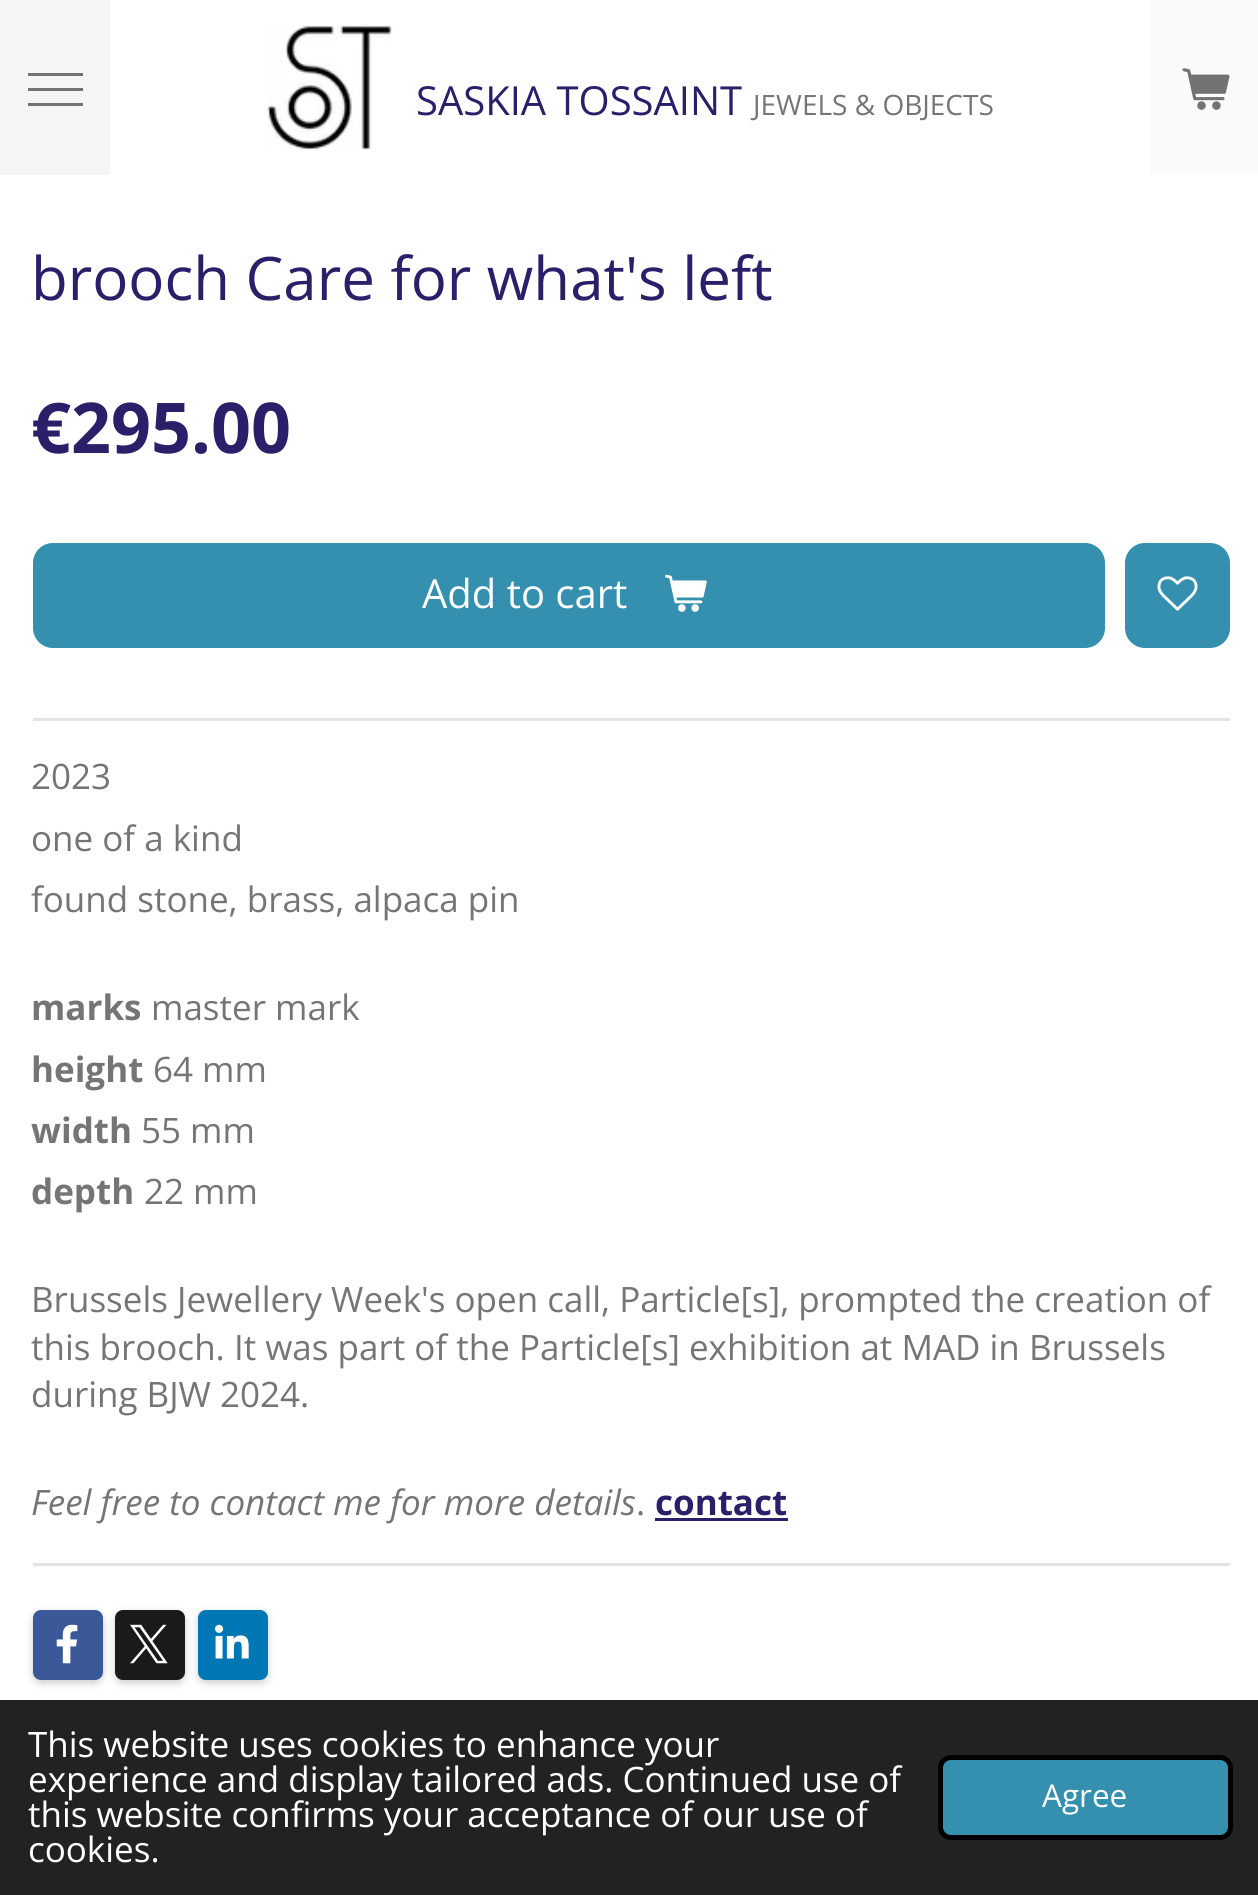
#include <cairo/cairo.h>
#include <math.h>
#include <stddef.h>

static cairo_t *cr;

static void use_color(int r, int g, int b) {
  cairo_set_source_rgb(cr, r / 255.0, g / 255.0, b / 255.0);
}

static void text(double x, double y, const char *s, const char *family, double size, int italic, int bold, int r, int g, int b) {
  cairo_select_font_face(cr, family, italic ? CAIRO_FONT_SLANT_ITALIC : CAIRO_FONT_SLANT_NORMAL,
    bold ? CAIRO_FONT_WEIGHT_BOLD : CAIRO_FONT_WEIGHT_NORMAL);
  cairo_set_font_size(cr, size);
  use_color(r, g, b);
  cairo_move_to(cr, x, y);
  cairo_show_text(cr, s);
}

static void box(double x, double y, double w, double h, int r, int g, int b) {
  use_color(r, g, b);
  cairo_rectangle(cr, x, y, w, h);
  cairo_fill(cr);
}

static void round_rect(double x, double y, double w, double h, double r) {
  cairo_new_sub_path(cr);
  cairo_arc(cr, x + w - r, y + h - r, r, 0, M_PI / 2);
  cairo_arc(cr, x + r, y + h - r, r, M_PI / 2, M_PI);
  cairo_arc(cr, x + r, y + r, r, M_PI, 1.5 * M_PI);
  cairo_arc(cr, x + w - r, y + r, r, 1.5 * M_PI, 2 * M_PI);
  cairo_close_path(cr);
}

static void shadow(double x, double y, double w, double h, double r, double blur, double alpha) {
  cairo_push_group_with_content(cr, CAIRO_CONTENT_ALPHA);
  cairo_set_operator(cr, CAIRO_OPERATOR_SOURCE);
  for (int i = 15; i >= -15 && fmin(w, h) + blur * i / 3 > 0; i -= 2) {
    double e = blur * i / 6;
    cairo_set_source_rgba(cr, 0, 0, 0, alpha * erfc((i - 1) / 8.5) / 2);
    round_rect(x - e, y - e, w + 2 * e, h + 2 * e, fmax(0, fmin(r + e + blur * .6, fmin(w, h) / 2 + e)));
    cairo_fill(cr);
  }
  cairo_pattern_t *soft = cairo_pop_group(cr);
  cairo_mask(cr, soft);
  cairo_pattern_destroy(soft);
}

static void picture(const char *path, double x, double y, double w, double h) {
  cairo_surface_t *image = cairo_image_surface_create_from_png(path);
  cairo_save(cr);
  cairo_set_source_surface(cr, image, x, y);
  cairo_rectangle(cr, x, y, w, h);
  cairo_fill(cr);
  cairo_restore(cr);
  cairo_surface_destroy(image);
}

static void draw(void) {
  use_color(255, 255, 255);
  cairo_paint(cr);
  box(0, 0, 110, 175, 245, 245, 245);
  box(28, 88, 55, 3, 115, 115, 115);
  box(28, 73, 55, 3, 115, 115, 115);
  box(28, 103, 55, 3, 115, 115, 115);
  picture("img_01.png", 267, 25, 126, 125);
  box(1150, 0, 108, 175, 250, 250, 250);
  picture("img_02.png", 1182, 68, 48, 42);
  use_color(52, 144, 174);
  round_rect(33, 543, 1072, 105, 20);
  cairo_fill(cr);
  picture("img_03.png", 665, 574, 42, 38);
  round_rect(1125, 543, 105, 105, 20);
  cairo_fill(cr);
  picture("img_04.png", 1157, 576, 41, 35);
  box(33, 718, 1197, 3, 227, 227, 227);
  box(655, 1518, 133, 3, 42, 31, 104);
  box(33, 1563, 1197, 3, 227, 227, 227);
  use_color(0, 0, 0);
  shadow(33, 1613, 70, 70, 8, 4, 0.2);
  use_color(59, 89, 152);
  round_rect(33, 1610, 70, 70, 8);
  cairo_fill(cr);
  picture("img_05.png", 56, 1624, 22, 40);
  use_color(0, 0, 0);
  shadow(115, 1613, 70, 70, 8, 4, 0.2);
  use_color(26, 26, 26);
  round_rect(115, 1610, 70, 70, 8);
  cairo_fill(cr);
  picture("img_06.png", 130, 1624, 38, 40);
  use_color(0, 0, 0);
  shadow(198, 1613, 70, 70, 8, 4, 0.2);
  use_color(0, 119, 181);
  round_rect(198, 1610, 70, 70, 8);
  cairo_fill(cr);
  picture("img_07.png", 215, 1624, 34, 35);
  box(0, 1700, 1258, 195, 34, 34, 34);
  use_color(52, 144, 174);
  round_rect(940.5, 1757.5, 290, 80, 10.5);
  cairo_fill_preserve(cr);
  use_color(0, 0, 0);
  cairo_set_line_width(cr, 5);
  cairo_stroke(cr);
  text(416, 115, "SASKIA TOSSAINT", "Open Sans", 40, 0, 0, 42, 31, 104);
  text(753, 115, "JEWELS & OBJECTS", "Open Sans", 28, 0, 0, 117, 117, 117);
  text(31, 300, "brooch Care for what's left", "Open Sans", 60, 0, 0, 42, 31, 104);
  text(31, 453, "€295.00", "Open Sans", 70, 0, 1, 42, 31, 104);
  text(422, 608, "Add to cart", "Open Sans", 40, 0, 0, 255, 255, 255);
  text(31, 789, "2023", "Open Sans", 35, 0, 0, 117, 117, 117);
  text(31, 851, "one of a kind", "Open Sans", 35, 0, 0, 117, 117, 117);
  text(31, 912, "found stone, brass, alpaca pin", "Open Sans", 35, 0, 0, 117, 117, 117);
  text(31, 1020, "marks", "Open Sans", 35, 0, 1, 117, 117, 117);
  text(151, 1020, "master mark", "Open Sans", 35, 0, 0, 117, 117, 117);
  text(31, 1082, "height", "Open Sans", 35, 0, 1, 117, 117, 117);
  text(153, 1082, "64 mm", "Open Sans", 35, 0, 0, 117, 117, 117);
  text(31, 1143, "width", "Open Sans", 35, 0, 1, 117, 117, 117);
  text(141, 1143, "55 mm", "Open Sans", 35, 0, 0, 117, 117, 117);
  text(31, 1204, "depth", "Open Sans", 35, 0, 1, 117, 117, 117);
  text(144, 1204, "22 mm", "Open Sans", 35, 0, 0, 117, 117, 117);
  text(31, 1312, "Brussels Jewellery Week's open call, Particle[s], prompted the creation of", "Open Sans", 35, 0, 0, 117, 117, 117);
  text(31, 1360, "this brooch. It was part of the Particle[s] exhibition at MAD in Brussels", "Open Sans", 35, 0, 0, 117, 117, 117);
  text(31, 1407, "during BJW 2024.", "Open Sans", 35, 0, 0, 117, 117, 117);
  text(31, 1515, "Feel free to contact me for more details", "Open Sans", 35, 1, 0, 117, 117, 117);
  text(636, 1515, ".", "Open Sans", 35, 0, 0, 117, 117, 117);
  text(655, 1515, "contact", "Open Sans", 35, 0, 1, 42, 31, 104);
  text(28, 1757, "This website uses cookies to enhance your", "Open Sans", 35, 0, 0, 255, 255, 255);
  text(28, 1792, "experience and display tailored ads. Continued use of", "Open Sans", 35, 0, 0, 255, 255, 255);
  text(28, 1827, "this website confirms your acceptance of our use of", "Open Sans", 35, 0, 0, 255, 255, 255);
  text(28, 1862, "cookies.", "Open Sans", 35, 0, 0, 255, 255, 255);
  text(1042, 1807, "Agree", "Open Sans", 31.5, 0, 0, 255, 255, 255);
}

int main(void) {
  cairo_surface_t *surface = cairo_image_surface_create(CAIRO_FORMAT_RGB24, 1258, 1895);
  cr = cairo_create(surface);
  cairo_font_options_t *options = cairo_font_options_create();
  cairo_font_options_set_hint_metrics(options, CAIRO_HINT_METRICS_OFF);
  cairo_font_options_set_hint_style(options, CAIRO_HINT_STYLE_NONE);
  cairo_set_font_options(cr, options);
  cairo_set_miter_limit(cr, 4);
  draw();
  cairo_surface_write_to_png(surface, "out.png");
  cairo_font_options_destroy(options);
  cairo_destroy(cr);
  cairo_surface_destroy(surface);
  return 0;
}
